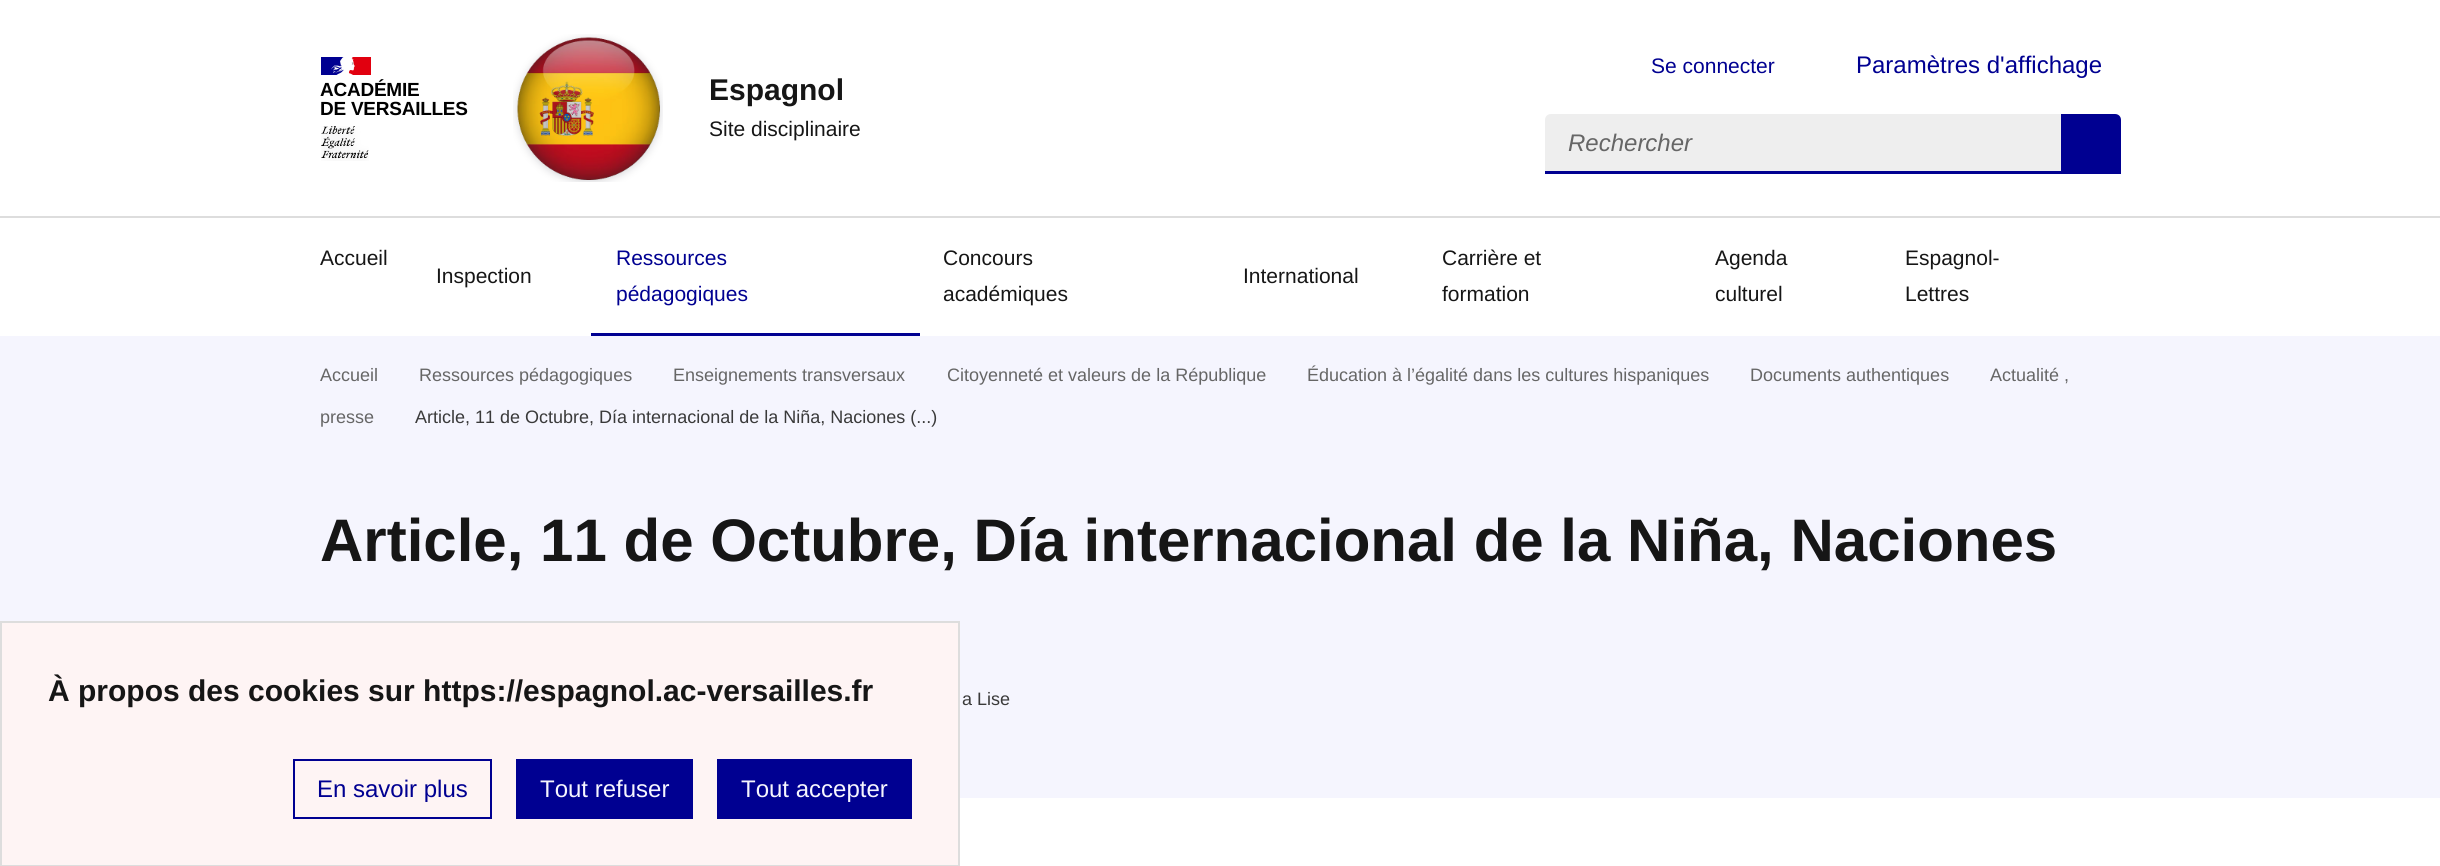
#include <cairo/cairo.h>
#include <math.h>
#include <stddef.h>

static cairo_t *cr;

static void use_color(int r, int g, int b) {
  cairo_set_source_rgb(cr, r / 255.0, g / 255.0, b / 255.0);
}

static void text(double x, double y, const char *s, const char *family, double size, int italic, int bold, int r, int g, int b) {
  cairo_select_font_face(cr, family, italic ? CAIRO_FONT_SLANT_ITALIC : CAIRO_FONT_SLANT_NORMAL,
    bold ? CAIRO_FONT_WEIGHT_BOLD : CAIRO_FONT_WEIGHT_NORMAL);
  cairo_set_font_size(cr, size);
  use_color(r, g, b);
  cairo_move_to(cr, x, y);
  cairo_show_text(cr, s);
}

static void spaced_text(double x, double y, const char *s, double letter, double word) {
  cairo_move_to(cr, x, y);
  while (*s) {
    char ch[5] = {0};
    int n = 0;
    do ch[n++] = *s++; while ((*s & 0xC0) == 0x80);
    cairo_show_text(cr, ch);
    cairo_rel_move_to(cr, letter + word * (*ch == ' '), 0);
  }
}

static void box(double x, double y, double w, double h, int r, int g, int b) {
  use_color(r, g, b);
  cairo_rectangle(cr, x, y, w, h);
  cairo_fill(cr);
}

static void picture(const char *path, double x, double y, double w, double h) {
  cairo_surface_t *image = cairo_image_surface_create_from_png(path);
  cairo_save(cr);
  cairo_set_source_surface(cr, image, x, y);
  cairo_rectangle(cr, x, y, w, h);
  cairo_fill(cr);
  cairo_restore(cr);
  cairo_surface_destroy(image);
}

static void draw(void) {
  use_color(255, 255, 255);
  cairo_paint(cr);
  box(321, 57, 23, 18, 0, 0, 145);
  box(348, 57, 23, 18, 225, 0, 15);
  picture("img_01.png", 331, 57, 24, 18);
  picture("img_02.png", 321, 126, 48, 35);
  picture("img_03.png", 513, 34, 150, 148);
  use_color(238, 238, 238);
  cairo_new_path(cr);
  cairo_move_to(cr, 1551, 114);
  cairo_line_to(cr, 2061, 114);
  cairo_line_to(cr, 2061, 174);
  cairo_line_to(cr, 1545, 174);
  cairo_line_to(cr, 1545, 120);
  cairo_curve_to(cr, 1545, 116.5, 1547.5, 114, 1551, 114);
  cairo_close_path(cr);
  cairo_fill(cr);
  box(1545, 171, 516, 3, 0, 0, 145);
  cairo_new_path(cr);
  cairo_move_to(cr, 2061, 114);
  cairo_line_to(cr, 2115, 114);
  cairo_curve_to(cr, 2118.5, 114, 2121, 116.5, 2121, 120);
  cairo_line_to(cr, 2121, 174);
  cairo_line_to(cr, 2061, 174);
  cairo_close_path(cr);
  cairo_fill(cr);
  box(0, 216, 2440, 2, 221, 221, 221);
  box(591, 333, 329, 3, 0, 0, 145);
  box(0, 336, 2440, 462, 245, 245, 254);
  use_color(254, 244, 244);
  cairo_rectangle(cr, 1, 622, 958, 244);
  cairo_fill_preserve(cr);
  use_color(221, 221, 221);
  cairo_stroke(cr);
  cairo_rectangle(cr, 294, 760, 197, 58);
  use_color(0, 0, 145);
  cairo_stroke(cr);
  box(516, 759, 177, 60, 0, 0, 145);
  box(717, 759, 195, 60, 0, 0, 145);
  cairo_select_font_face(cr, "Liberation Sans", CAIRO_FONT_SLANT_NORMAL, CAIRO_FONT_WEIGHT_BOLD);
  cairo_set_font_size(cr, 19);
  use_color(0, 0, 0);
  spaced_text(320, 96, "ACADÉMIE", -0.25, 0);
  spaced_text(320, 115, "DE VERSAILLES", -0.25, 0);
  text(709, 100, "Espagnol", "Liberation Sans", 30, 0, 1, 22, 22, 22);
  text(709, 136, "Site disciplinaire", "Liberation Sans", 21, 0, 0, 22, 22, 22);
  text(1651, 73, "Se connecter", "Liberation Sans", 21, 0, 0, 0, 0, 145);
  text(1856, 73, "Paramètres d'affichage", "Liberation Sans", 24, 0, 0, 0, 0, 145);
  text(1568, 151, "Rechercher", "Liberation Sans", 24, 1, 0, 102, 102, 102);
  text(320, 265, "Accueil", "Liberation Sans", 21, 0, 0, 22, 22, 22);
  text(436, 283, "Inspection", "Liberation Sans", 21, 0, 0, 22, 22, 22);
  text(616, 265, "Ressources", "Liberation Sans", 21, 0, 0, 0, 0, 145);
  text(616, 301, "pédagogiques", "Liberation Sans", 21, 0, 0, 0, 0, 145);
  text(943, 265, "Concours", "Liberation Sans", 21, 0, 0, 22, 22, 22);
  text(943, 301, "académiques", "Liberation Sans", 21, 0, 0, 22, 22, 22);
  text(1243, 283, "International", "Liberation Sans", 21, 0, 0, 22, 22, 22);
  text(1442, 265, "Carrière et", "Liberation Sans", 21, 0, 0, 22, 22, 22);
  text(1442, 301, "formation", "Liberation Sans", 21, 0, 0, 22, 22, 22);
  text(1715, 265, "Agenda", "Liberation Sans", 21, 0, 0, 22, 22, 22);
  text(1715, 301, "culturel", "Liberation Sans", 21, 0, 0, 22, 22, 22);
  text(1905, 265, "Espagnol-", "Liberation Sans", 21, 0, 0, 22, 22, 22);
  text(1905, 301, "Lettres", "Liberation Sans", 21, 0, 0, 22, 22, 22);
  text(320, 381, "Accueil", "Liberation Sans", 18, 0, 0, 102, 102, 102);
  text(419, 381, "Ressources pédagogiques", "Liberation Sans", 18, 0, 0, 102, 102, 102);
  text(673, 381, "Enseignements transversaux", "Liberation Sans", 18, 0, 0, 102, 102, 102);
  text(947, 381, "Citoyenneté et valeurs de la République", "Liberation Sans", 18, 0, 0, 102, 102, 102);
  text(1307, 381, "Éducation à l’égalité dans les cultures hispaniques", "Liberation Sans", 18, 0, 0, 102, 102, 102);
  text(1750, 381, "Documents authentiques", "Liberation Sans", 18, 0, 0, 102, 102, 102);
  text(1990, 381, "Actualité ,", "Liberation Sans", 18, 0, 0, 102, 102, 102);
  text(320, 423, "presse", "Liberation Sans", 18, 0, 0, 102, 102, 102);
  text(415, 423, "Article, 11 de Octubre, Día internacional de la Niña, Naciones (...)", "Liberation Sans", 18, 0, 0, 58, 58, 58);
  text(320, 561, "Article, 11 de Octubre, Día internacional de la Niña, Naciones", "Liberation Sans", 60, 0, 1, 22, 22, 22);
  text(962, 705, "a Lise", "Liberation Sans", 18, 0, 0, 58, 58, 58);
  text(48, 701, "À propos des cookies sur https://espagnol.ac-versailles.fr", "Liberation Sans", 30, 0, 1, 22, 22, 22);
  text(317, 797, "En savoir plus", "Liberation Sans", 24, 0, 0, 0, 0, 145);
  text(540, 797, "Tout refuser", "Liberation Sans", 24, 0, 0, 245, 245, 254);
  text(741, 797, "Tout accepter", "Liberation Sans", 24, 0, 0, 245, 245, 254);
}

int main(void) {
  cairo_surface_t *surface = cairo_image_surface_create(CAIRO_FORMAT_RGB24, 2440, 866);
  cr = cairo_create(surface);
  cairo_font_options_t *options = cairo_font_options_create();
  cairo_font_options_set_hint_metrics(options, CAIRO_HINT_METRICS_OFF);
  cairo_font_options_set_hint_style(options, CAIRO_HINT_STYLE_NONE);
  cairo_set_font_options(cr, options);
  cairo_set_miter_limit(cr, 4);
  draw();
  cairo_surface_write_to_png(surface, "out.png");
  cairo_font_options_destroy(options);
  cairo_destroy(cr);
  cairo_surface_destroy(surface);
  return 0;
}
